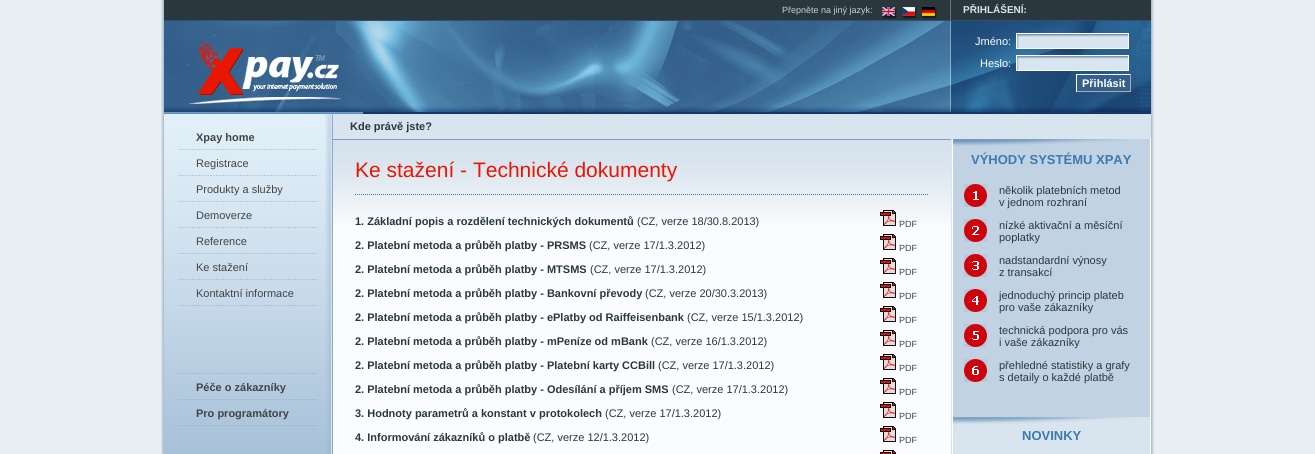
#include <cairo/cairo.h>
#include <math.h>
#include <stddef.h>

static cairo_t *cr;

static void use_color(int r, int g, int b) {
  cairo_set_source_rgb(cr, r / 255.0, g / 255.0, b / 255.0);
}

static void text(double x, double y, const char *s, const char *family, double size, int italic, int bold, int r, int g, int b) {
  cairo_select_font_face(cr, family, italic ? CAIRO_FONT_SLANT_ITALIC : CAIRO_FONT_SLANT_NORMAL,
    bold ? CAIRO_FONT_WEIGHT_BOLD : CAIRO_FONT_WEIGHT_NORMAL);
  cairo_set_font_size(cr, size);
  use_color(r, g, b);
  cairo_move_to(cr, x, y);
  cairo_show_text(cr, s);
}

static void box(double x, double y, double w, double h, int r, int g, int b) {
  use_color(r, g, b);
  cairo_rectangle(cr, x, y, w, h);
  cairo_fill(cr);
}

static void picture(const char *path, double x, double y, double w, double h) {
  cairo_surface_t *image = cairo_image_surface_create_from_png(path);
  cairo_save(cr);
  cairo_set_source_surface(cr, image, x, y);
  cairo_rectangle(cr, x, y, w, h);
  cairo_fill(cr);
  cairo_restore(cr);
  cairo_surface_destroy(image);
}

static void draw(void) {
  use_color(232, 238, 242);
  cairo_paint(cr);
  picture("img_01.png", 161, 0, 993, 454);
  box(164, 0, 987, 20, 42, 55, 61);
  picture("img_02.png", 882, 7, 15, 12);
  picture("img_03.png", 902, 7, 15, 12);
  picture("img_04.png", 922, 7, 15, 12);
  box(950, 0, 1, 20, 103, 119, 125);
  picture("img_05.png", 164, 20, 987, 94);
  picture("img_06.png", 1016, 33, 113, 16);
  picture("img_06.png", 1016, 55, 113, 16);
  box(1077, 75, 53, 16, 51, 95, 138);
  box(1076, 74, 55, 1, 255, 255, 255);
  box(1130, 74, 1, 18, 170, 170, 170);
  box(1076, 91, 55, 1, 170, 170, 170);
  box(1076, 74, 1, 18, 255, 255, 255);
  box(1150, 139, 1, 315, 251, 252, 254);
  picture("img_07.png", 332, 114, 818, 340);
  picture("img_08.png", 164, 114, 161, 340);
  picture("img_09.png", 325, 114, 7, 340);
  picture("img_10.png", 178, 149, 139, 1);
  picture("img_11.png", 178, 175, 139, 1);
  picture("img_12.png", 178, 201, 139, 1);
  picture("img_13.png", 178, 227, 139, 1);
  picture("img_14.png", 178, 253, 139, 1);
  picture("img_15.png", 178, 279, 139, 1);
  picture("img_16.png", 178, 305, 139, 1);
  picture("img_17.png", 178, 373, 139, 1);
  picture("img_18.png", 178, 399, 139, 1);
  picture("img_19.png", 178, 425, 139, 1);
  box(333, 114, 818, 25, 216, 228, 238);
  picture("img_20.png", 333, 139, 618, 84);
  picture("img_21.png", 355, 194, 573, 1);
  picture("img_22.png", 880, 210, 16, 16);
  picture("img_23.png", 880, 234, 16, 16);
  picture("img_23.png", 880, 258, 16, 16);
  picture("img_23.png", 880, 282, 16, 16);
  picture("img_23.png", 880, 306, 16, 16);
  picture("img_23.png", 880, 330, 16, 16);
  picture("img_23.png", 880, 354, 16, 16);
  picture("img_23.png", 880, 378, 16, 16);
  picture("img_23.png", 880, 402, 16, 16);
  picture("img_23.png", 880, 426, 16, 16);
  picture("img_24.png", 880, 450, 16, 4);
  picture("img_25.png", 951, 139, 1, 315);
  picture("img_26.png", 953, 139, 176, 7);
  picture("img_27.png", 964, 184, 23, 23);
  picture("img_28.png", 964, 219, 23, 23);
  picture("img_29.png", 964, 254, 23, 23);
  picture("img_30.png", 964, 289, 23, 23);
  picture("img_31.png", 964, 324, 23, 23);
  picture("img_32.png", 964, 359, 23, 23);
  box(953, 431, 197, 23, 215, 227, 237);
  picture("img_33.png", 953, 417, 197, 14);
  text(782, 13, "Přepněte na jiný jazyk:", "Liberation Sans", 9, 0, 0, 201, 209, 213);
  text(963, 13, "PŘIHLÁŠENÍ:", "Liberation Sans", 10, 0, 1, 216, 228, 238);
  text(975, 45, "Jméno:", "Liberation Sans", 11, 0, 0, 255, 255, 255);
  text(980, 67, "Heslo:", "Liberation Sans", 11, 0, 0, 255, 255, 255);
  text(1082, 87, "Přihlásit", "Liberation Sans", 11, 0, 1, 255, 255, 255);
  text(196, 141, "Xpay home", "Liberation Sans", 11, 0, 1, 67, 67, 67);
  text(196, 167, "Registrace", "Liberation Sans", 11, 0, 0, 67, 67, 67);
  text(196, 193, "Produkty a služby", "Liberation Sans", 11, 0, 0, 67, 67, 67);
  text(196, 219, "Demoverze", "Liberation Sans", 11, 0, 0, 67, 67, 67);
  text(196, 245, "Reference", "Liberation Sans", 11, 0, 0, 67, 67, 67);
  text(196, 271, "Ke stažení", "Liberation Sans", 11, 0, 0, 67, 67, 67);
  text(196, 297, "Kontaktní informace", "Liberation Sans", 11, 0, 0, 67, 67, 67);
  text(196, 391, "Péče o zákazníky", "Liberation Sans", 11, 0, 1, 67, 67, 67);
  text(196, 417, "Pro programátory", "Liberation Sans", 11, 0, 1, 67, 67, 67);
  text(350, 130, "Kde právě jste?", "Liberation Sans", 11, 0, 1, 42, 55, 61);
  text(355, 177, "Ke stažení - Technické dokumenty", "Liberation Sans", 21, 0, 0, 233, 22, 0);
  text(355, 225, "1. Základní popis a rozdělení technických dokumentů", "Liberation Sans", 11, 0, 1, 42, 55, 61);
  text(637, 225, "(CZ, verze 18/30.8.2013)", "Liberation Sans", 11, 0, 0, 42, 55, 61);
  text(899, 227, "PDF", "Liberation Sans", 9, 0, 0, 67, 67, 67);
  text(355, 249, "2. Platební metoda a průběh platby - PRSMS", "Liberation Sans", 11, 0, 1, 42, 55, 61);
  text(589, 249, "(CZ, verze 17/1.3.2012)", "Liberation Sans", 11, 0, 0, 42, 55, 61);
  text(899, 251, "PDF", "Liberation Sans", 9, 0, 0, 67, 67, 67);
  text(355, 273, "2. Platební metoda a průběh platby - MTSMS", "Liberation Sans", 11, 0, 1, 42, 55, 61);
  text(590, 273, "(CZ, verze 17/1.3.2012)", "Liberation Sans", 11, 0, 0, 42, 55, 61);
  text(899, 275, "PDF", "Liberation Sans", 9, 0, 0, 67, 67, 67);
  text(355, 297, "2. Platební metoda a průběh platby - Bankovní převody", "Liberation Sans", 11, 0, 1, 42, 55, 61);
  text(645, 297, "(CZ, verze 20/30.3.2013)", "Liberation Sans", 11, 0, 0, 42, 55, 61);
  text(899, 299, "PDF", "Liberation Sans", 9, 0, 0, 67, 67, 67);
  text(355, 321, "2. Platební metoda a průběh platby - ePlatby od Raiffeisenbank", "Liberation Sans", 11, 0, 1, 42, 55, 61);
  text(687, 321, "(CZ, verze 15/1.3.2012)", "Liberation Sans", 11, 0, 0, 42, 55, 61);
  text(899, 323, "PDF", "Liberation Sans", 9, 0, 0, 67, 67, 67);
  text(355, 345, "2. Platební metoda a průběh platby - mPeníze od mBank", "Liberation Sans", 11, 0, 1, 42, 55, 61);
  text(651, 345, "(CZ, verze 16/1.3.2012)", "Liberation Sans", 11, 0, 0, 42, 55, 61);
  text(899, 347, "PDF", "Liberation Sans", 9, 0, 0, 67, 67, 67);
  text(355, 369, "2. Platební metoda a průběh platby - Platební karty CCBill", "Liberation Sans", 11, 0, 1, 42, 55, 61);
  text(658, 369, "(CZ, verze 17/1.3.2012)", "Liberation Sans", 11, 0, 0, 42, 55, 61);
  text(899, 371, "PDF", "Liberation Sans", 9, 0, 0, 67, 67, 67);
  text(355, 393, "2. Platební metoda a průběh platby - Odesílání a příjem SMS", "Liberation Sans", 11, 0, 1, 42, 55, 61);
  text(672, 393, "(CZ, verze 17/1.3.2012)", "Liberation Sans", 11, 0, 0, 42, 55, 61);
  text(899, 395, "PDF", "Liberation Sans", 9, 0, 0, 67, 67, 67);
  text(355, 417, "3. Hodnoty parametrů a konstant v protokolech", "Liberation Sans", 11, 0, 1, 42, 55, 61);
  text(605, 417, "(CZ, verze 17/1.3.2012)", "Liberation Sans", 11, 0, 0, 42, 55, 61);
  text(899, 419, "PDF", "Liberation Sans", 9, 0, 0, 67, 67, 67);
  text(355, 441, "4. Informování zákazníků o platbě", "Liberation Sans", 11, 0, 1, 42, 55, 61);
  text(533, 441, "(CZ, verze 12/1.3.2012)", "Liberation Sans", 11, 0, 0, 42, 55, 61);
  text(899, 443, "PDF", "Liberation Sans", 9, 0, 0, 67, 67, 67);
  text(971, 164, "VÝHODY SYSTÉMU XPAY", "Liberation Sans", 13, 0, 1, 59, 123, 177);
  text(999, 194, "několik platebních metod", "Liberation Sans", 11, 0, 0, 42, 55, 61);
  text(999, 206, "v jednom rozhraní", "Liberation Sans", 11, 0, 0, 42, 55, 61);
  text(999, 229, "nízké aktivační a měsíční", "Liberation Sans", 11, 0, 0, 42, 55, 61);
  text(999, 241, "poplatky", "Liberation Sans", 11, 0, 0, 42, 55, 61);
  text(999, 264, "nadstandardní výnosy", "Liberation Sans", 11, 0, 0, 42, 55, 61);
  text(999, 276, "z transakcí", "Liberation Sans", 11, 0, 0, 42, 55, 61);
  text(999, 299, "jednoduchý princip plateb", "Liberation Sans", 11, 0, 0, 42, 55, 61);
  text(999, 311, "pro vaše zákazníky", "Liberation Sans", 11, 0, 0, 42, 55, 61);
  text(999, 334, "technická podpora pro vás", "Liberation Sans", 11, 0, 0, 42, 55, 61);
  text(999, 346, "i vaše zákazníky", "Liberation Sans", 11, 0, 0, 42, 55, 61);
  text(999, 369, "přehledné statistiky a grafy", "Liberation Sans", 11, 0, 0, 42, 55, 61);
  text(999, 381, "s detaily o každé platbě", "Liberation Sans", 11, 0, 0, 42, 55, 61);
  text(1022, 440, "NOVINKY", "Liberation Sans", 13, 0, 1, 59, 123, 177);
}

int main(void) {
  cairo_surface_t *surface = cairo_image_surface_create(CAIRO_FORMAT_RGB24, 1315, 454);
  cr = cairo_create(surface);
  cairo_font_options_t *options = cairo_font_options_create();
  cairo_font_options_set_hint_metrics(options, CAIRO_HINT_METRICS_OFF);
  cairo_font_options_set_hint_style(options, CAIRO_HINT_STYLE_NONE);
  cairo_set_font_options(cr, options);
  cairo_set_miter_limit(cr, 4);
  draw();
  cairo_surface_write_to_png(surface, "out.png");
  cairo_font_options_destroy(options);
  cairo_destroy(cr);
  cairo_surface_destroy(surface);
  return 0;
}
